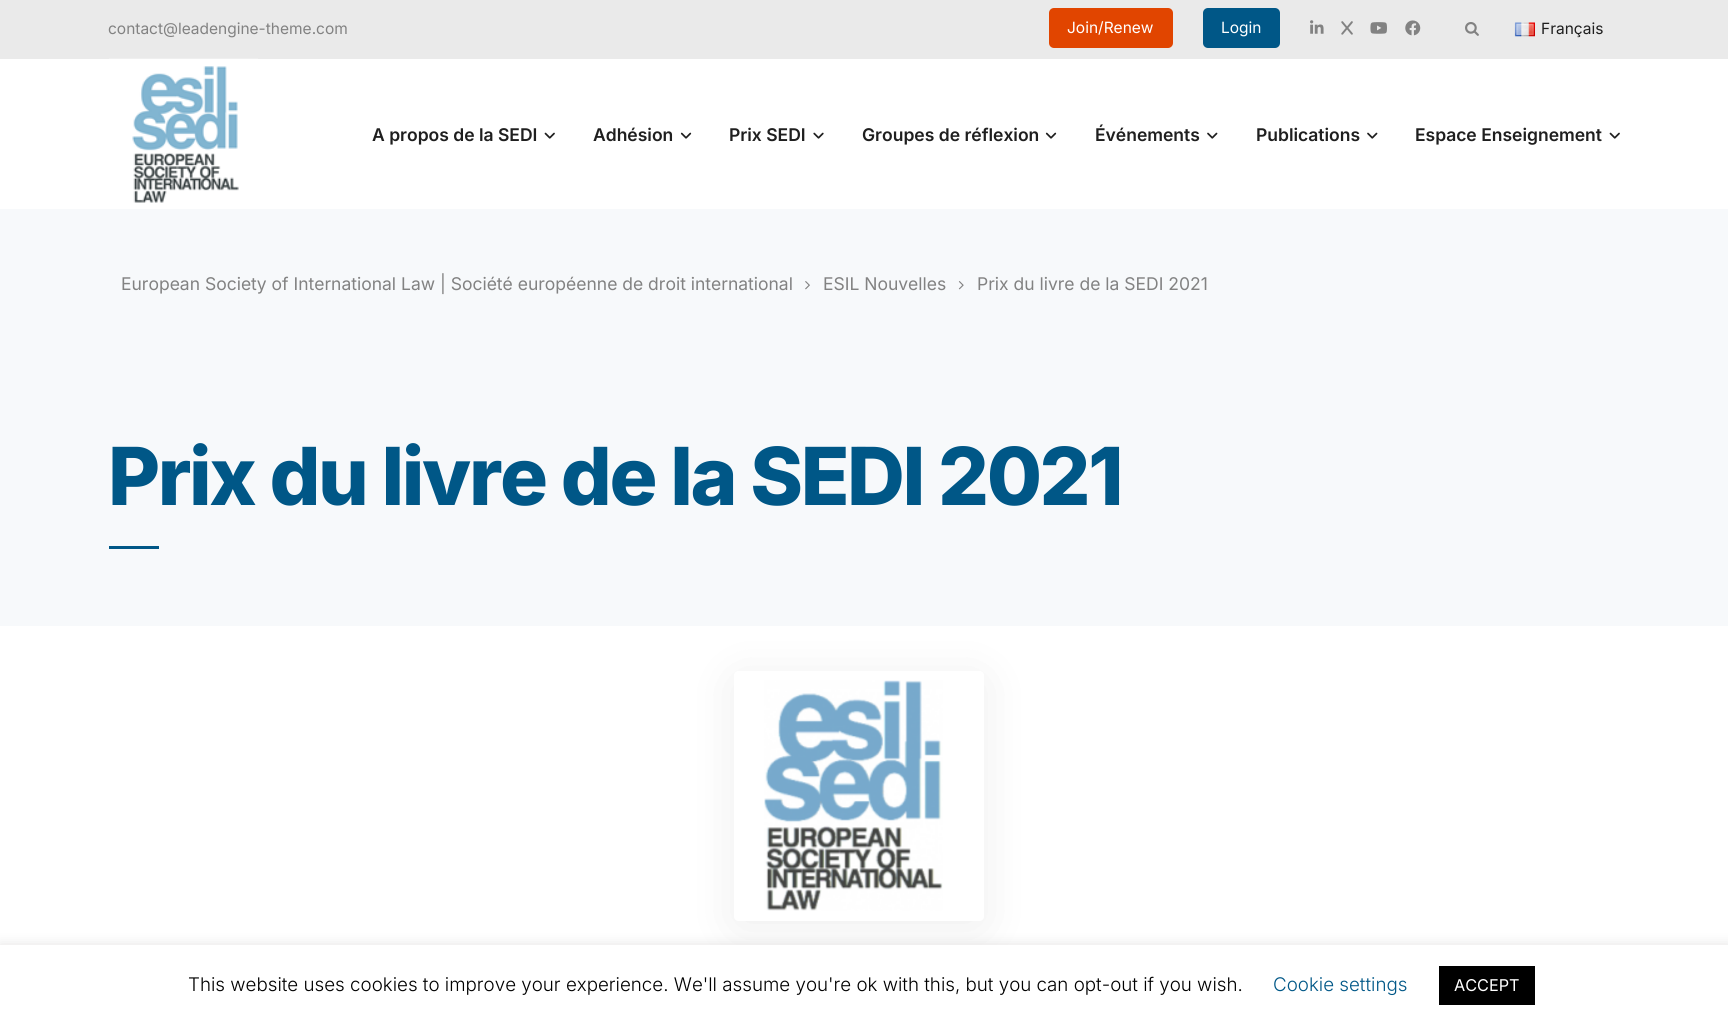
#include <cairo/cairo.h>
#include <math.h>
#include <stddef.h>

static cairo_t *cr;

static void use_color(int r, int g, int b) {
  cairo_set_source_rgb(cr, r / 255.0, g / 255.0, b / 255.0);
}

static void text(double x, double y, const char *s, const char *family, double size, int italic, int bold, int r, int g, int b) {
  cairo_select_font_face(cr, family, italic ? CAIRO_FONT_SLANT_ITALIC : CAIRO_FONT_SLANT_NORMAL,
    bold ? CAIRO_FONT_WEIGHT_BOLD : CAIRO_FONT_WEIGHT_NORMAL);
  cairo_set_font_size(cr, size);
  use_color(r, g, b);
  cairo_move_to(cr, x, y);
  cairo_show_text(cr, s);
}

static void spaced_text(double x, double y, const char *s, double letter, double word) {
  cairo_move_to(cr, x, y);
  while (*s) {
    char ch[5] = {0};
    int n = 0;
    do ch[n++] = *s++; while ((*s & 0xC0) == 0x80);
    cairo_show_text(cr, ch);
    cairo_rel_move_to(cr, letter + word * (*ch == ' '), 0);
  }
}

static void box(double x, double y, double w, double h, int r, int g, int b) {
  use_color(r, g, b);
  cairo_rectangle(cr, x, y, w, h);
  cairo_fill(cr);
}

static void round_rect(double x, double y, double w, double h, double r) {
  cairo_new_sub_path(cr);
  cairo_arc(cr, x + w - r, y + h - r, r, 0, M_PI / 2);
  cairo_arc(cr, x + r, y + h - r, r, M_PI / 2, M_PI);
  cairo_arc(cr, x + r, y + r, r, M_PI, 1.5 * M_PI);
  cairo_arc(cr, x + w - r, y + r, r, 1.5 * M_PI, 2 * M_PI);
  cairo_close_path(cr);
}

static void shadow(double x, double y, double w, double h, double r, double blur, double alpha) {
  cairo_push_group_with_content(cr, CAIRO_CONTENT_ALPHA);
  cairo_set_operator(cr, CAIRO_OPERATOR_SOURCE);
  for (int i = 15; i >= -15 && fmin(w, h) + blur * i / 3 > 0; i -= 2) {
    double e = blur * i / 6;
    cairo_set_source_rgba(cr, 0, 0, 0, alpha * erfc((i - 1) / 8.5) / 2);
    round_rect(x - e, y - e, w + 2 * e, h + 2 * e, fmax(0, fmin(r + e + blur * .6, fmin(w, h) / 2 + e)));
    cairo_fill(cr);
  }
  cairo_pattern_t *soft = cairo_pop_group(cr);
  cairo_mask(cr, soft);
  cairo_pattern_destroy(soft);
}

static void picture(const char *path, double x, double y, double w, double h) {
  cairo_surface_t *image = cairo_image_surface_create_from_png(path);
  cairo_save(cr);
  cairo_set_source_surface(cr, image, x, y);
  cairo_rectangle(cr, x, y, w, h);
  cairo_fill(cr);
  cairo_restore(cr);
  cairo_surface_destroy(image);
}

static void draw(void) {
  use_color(255, 255, 255);
  cairo_paint(cr);
  box(0, 0, 1728, 59, 234, 234, 234);
  use_color(225, 69, 0);
  round_rect(1049, 8, 124, 40, 5);
  cairo_fill(cr);
  use_color(0, 87, 135);
  round_rect(1203, 8, 77, 40, 5);
  cairo_fill(cr);
  picture("img_01.png", 1310, 20, 14, 14);
  picture("img_02.png", 1341, 21, 12, 14);
  picture("img_03.png", 1370, 22, 17, 12);
  picture("img_04.png", 1405, 20, 16, 16);
  picture("img_05.png", 1465, 22, 14, 14);
  picture("img_06.png", 1514, 22, 21, 15);
  picture("img_07.png", 109, 58, 149, 145);
  picture("img_08.png", 544, 132, 11, 7);
  picture("img_09.png", 680, 132, 12, 7);
  picture("img_10.png", 813, 132, 11, 7);
  picture("img_09.png", 1045, 132, 12, 7);
  picture("img_11.png", 1207, 132, 11, 7);
  picture("img_11.png", 1367, 132, 11, 7);
  picture("img_08.png", 1609, 132, 11, 7);
  box(0, 209, 1728, 417, 247, 249, 251);
  picture("img_12.png", 805, 281, 5, 9);
  picture("img_13.png", 958, 281, 6, 9);
  box(109, 546, 50, 3, 0, 87, 135);
  cairo_save(cr);
  cairo_set_fill_rule(cr, CAIRO_FILL_RULE_EVEN_ODD);
  cairo_new_path(cr);
  cairo_move_to(cr, 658, 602);
  cairo_line_to(cr, 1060, 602);
  cairo_line_to(cr, 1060, 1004);
  cairo_line_to(cr, 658, 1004);
  cairo_close_path(cr);
  cairo_move_to(cr, 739, 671);
  cairo_line_to(cr, 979, 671);
  cairo_curve_to(cr, 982, 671, 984, 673, 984, 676);
  cairo_line_to(cr, 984, 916);
  cairo_curve_to(cr, 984, 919, 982, 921, 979, 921);
  cairo_line_to(cr, 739, 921);
  cairo_curve_to(cr, 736, 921, 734, 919, 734, 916);
  cairo_line_to(cr, 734, 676);
  cairo_curve_to(cr, 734, 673, 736, 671, 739, 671);
  cairo_close_path(cr);
  cairo_clip(cr);
  use_color(0, 0, 0);
  shadow(734, 678, 250, 250, 5, 25, 0.07);
  cairo_restore(cr);
  picture("img_14.png", 764, 680, 179, 231);
  use_color(172, 171, 171);
  shadow(0, 944, 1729, 81, 0, 6, 0.3);
  box(0, 945, 1728, 81, 255, 255, 255);
  box(1439, 966, 96, 39, 0, 0, 0);
  text(108, 34, "contact@leadengine-theme.com", "Inter", 15.5, 0, 0, 130, 130, 130);
  text(1067, 33, "Join/Renew", "Inter", 15.5, 0, 0, 255, 255, 255);
  text(1221, 33, "Login", "Inter", 15.5, 0, 0, 255, 255, 255);
  text(1541, 34, "Français", "Inter", 15.5, 0, 0, 31, 31, 31);
  text(372, 141, "A propos de la SEDI", "Inter SemiBold", 17.5, 0, 0, 31, 31, 31);
  text(593, 141, "Adhésion", "Inter SemiBold", 17.5, 0, 0, 31, 31, 31);
  text(729, 141, "Prix SEDI", "Inter SemiBold", 17.5, 0, 0, 31, 31, 31);
  text(862, 141, "Groupes de réflexion", "Inter SemiBold", 17.5, 0, 0, 31, 31, 31);
  text(1095, 141, "Événements", "Inter SemiBold", 17.5, 0, 0, 31, 31, 31);
  text(1256, 141, "Publications", "Inter SemiBold", 17.5, 0, 0, 31, 31, 31);
  text(1415, 141, "Espace Enseignement", "Inter SemiBold", 17.5, 0, 0, 31, 31, 31);
  text(121, 290, "European Society of International Law | Société européenne de droit international", "Inter", 17.5, 0, 0, 130, 130, 130);
  text(823, 290, "ESIL Nouvelles", "Inter", 17.5, 0, 0, 130, 130, 130);
  text(977, 290, "Prix du livre de la SEDI 2021", "Inter", 17.5, 0, 0, 130, 130, 130);
  cairo_select_font_face(cr, "Inter ExtraBold", CAIRO_FONT_SLANT_NORMAL, CAIRO_FONT_WEIGHT_NORMAL);
  cairo_set_font_size(cr, 80);
  use_color(0, 87, 135);
  spaced_text(108, 505, "Prix du livre de la SEDI 2021", -2.4, 0);
  text(188, 991, "This website uses cookies to improve your experience. We'll assume you're ok with this, but you can opt-out if you wish.", "Inter Light", 18.75, 0, 0, 0, 0, 0);
  text(1273, 991, "Cookie settings", "Inter Light", 18.75, 0, 0, 0, 87, 135);
  text(1454, 991, "ACCEPT", "Inter", 16.25, 0, 0, 255, 255, 255);
}

int main(void) {
  cairo_surface_t *surface = cairo_image_surface_create(CAIRO_FORMAT_RGB24, 1728, 1026);
  cr = cairo_create(surface);
  cairo_font_options_t *options = cairo_font_options_create();
  cairo_font_options_set_hint_metrics(options, CAIRO_HINT_METRICS_OFF);
  cairo_font_options_set_hint_style(options, CAIRO_HINT_STYLE_NONE);
  cairo_set_font_options(cr, options);
  cairo_set_miter_limit(cr, 4);
  draw();
  cairo_surface_write_to_png(surface, "out.png");
  cairo_font_options_destroy(options);
  cairo_destroy(cr);
  cairo_surface_destroy(surface);
  return 0;
}
